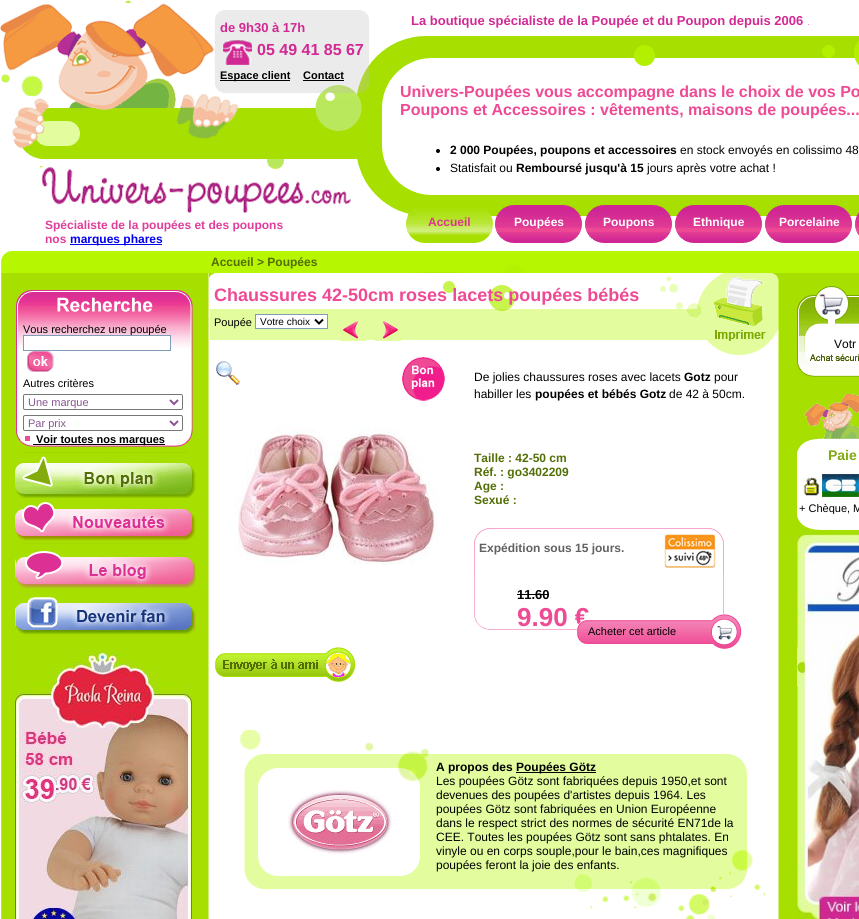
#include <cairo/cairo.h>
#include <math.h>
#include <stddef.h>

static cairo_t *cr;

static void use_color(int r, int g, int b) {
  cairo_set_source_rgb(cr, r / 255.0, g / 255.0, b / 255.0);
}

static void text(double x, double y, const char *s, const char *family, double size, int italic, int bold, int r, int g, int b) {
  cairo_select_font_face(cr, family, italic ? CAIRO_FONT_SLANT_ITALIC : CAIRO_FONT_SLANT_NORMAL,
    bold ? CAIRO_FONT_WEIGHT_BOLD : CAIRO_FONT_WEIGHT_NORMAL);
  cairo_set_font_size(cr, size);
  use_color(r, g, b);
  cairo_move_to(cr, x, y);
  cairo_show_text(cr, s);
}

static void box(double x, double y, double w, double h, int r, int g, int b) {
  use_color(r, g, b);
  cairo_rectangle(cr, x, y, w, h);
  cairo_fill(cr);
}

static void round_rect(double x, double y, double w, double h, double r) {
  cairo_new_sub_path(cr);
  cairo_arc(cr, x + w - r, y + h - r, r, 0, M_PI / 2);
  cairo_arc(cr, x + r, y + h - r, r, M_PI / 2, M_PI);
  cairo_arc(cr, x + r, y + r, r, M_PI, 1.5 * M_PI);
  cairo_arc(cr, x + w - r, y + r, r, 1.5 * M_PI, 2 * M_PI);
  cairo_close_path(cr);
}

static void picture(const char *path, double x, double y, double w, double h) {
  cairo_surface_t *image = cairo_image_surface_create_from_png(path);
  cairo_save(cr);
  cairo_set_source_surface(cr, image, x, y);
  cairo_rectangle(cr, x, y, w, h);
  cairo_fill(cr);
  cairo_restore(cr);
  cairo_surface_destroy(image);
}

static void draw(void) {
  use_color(255, 255, 255);
  cairo_paint(cr);
  picture("img_01.png", 2, 0, 510, 3);
  picture("img_02.png", 0, 3, 859, 270);
  picture("img_03.png", 222, 40, 30, 26);
  box(220, 80, 70, 1, 0, 0, 0);
  box(303, 80, 41, 1, 0, 0, 0);
  box(807, 24, 1, 1, 253, 244, 247);
  box(808, 24, 1, 1, 232, 138, 193);
  use_color(0, 0, 0);
  cairo_arc(cr, 438, 151, 2, 0, 2 * M_PI);
  cairo_fill(cr);
  cairo_arc(cr, 438, 169, 2, 0, 2 * M_PI);
  cairo_fill(cr);
  box(70, 244, 92, 1, 0, 0, 238);
  picture("img_04.png", 406, 207, 87, 36);
  picture("img_05.png", 495, 205, 87, 38);
  picture("img_05.png", 585, 205, 87, 38);
  picture("img_05.png", 675, 205, 87, 38);
  picture("img_05.png", 765, 205, 87, 38);
  picture("img_06.png", 855, 212, 4, 23);
  picture("img_07.png", 1, 273, 858, 646);
  picture("img_08.png", 16, 290, 177, 157);
  box(24, 336, 146, 13, 255, 255, 255);
  picture("img_09.png", 27, 351, 27, 21);
  round_rect(23.5, 394.5, 159, 15, 1.5);
  use_color(118, 118, 118);
  cairo_set_line_width(cr, 1);
  cairo_stroke(cr);
  cairo_new_path(cr);
  cairo_move_to(cr, 170, 400);
  cairo_line_to(cr, 174, 404);
  cairo_line_to(cr, 178, 400);
  use_color(136, 84, 145);
  cairo_set_line_width(cr, 2);
  cairo_stroke(cr);
  round_rect(23.5, 415.5, 159, 15, 1.5);
  use_color(118, 118, 118);
  cairo_set_line_width(cr, 1);
  cairo_stroke(cr);
  cairo_new_path(cr);
  cairo_move_to(cr, 170, 421);
  cairo_line_to(cr, 174, 425);
  cairo_line_to(cr, 178, 421);
  use_color(136, 84, 145);
  cairo_set_line_width(cr, 2);
  cairo_stroke(cr);
  box(25, 436, 5, 5, 239, 74, 148);
  box(33, 444, 132, 1, 0, 0, 0);
  picture("img_10.png", 15, 452, 181, 46);
  picture("img_11.png", 15, 502, 181, 39);
  picture("img_12.png", 15, 543, 181, 46);
  picture("img_13.png", 15, 597, 181, 40);
  picture("img_14.png", 15, 651, 177, 268);
  picture("img_15.png", 209, 273, 570, 82);
  use_color(255, 255, 255);
  cairo_rectangle(cr, 255.5, 314.5, 72, 14);
  cairo_fill_preserve(cr);
  use_color(127, 157, 185);
  cairo_set_line_width(cr, 1);
  cairo_stroke(cr);
  cairo_new_path(cr);
  cairo_move_to(cr, 315, 319.5);
  cairo_line_to(cr, 319, 323.5);
  cairo_line_to(cr, 323, 319.5);
  use_color(0, 0, 0);
  cairo_set_line_width(cr, 2);
  cairo_stroke(cr);
  picture("img_16.png", 340, 321, 26, 20);
  picture("img_17.png", 375, 321, 26, 20);
  picture("img_18.png", 216, 361, 24, 24);
  picture("img_19.png", 402, 357, 43, 44);
  picture("img_20.png", 234, 425, 204, 140);
  picture("img_21.png", 215, 647, 141, 35);
  picture("img_22.png", 474, 528, 250, 102);
  box(517, 594, 32, 1, 0, 0, 0);
  picture("img_24.png", 239, 730, 527, 189);
  picture("img_25.png", 282, 789, 118, 67);
  box(516, 772, 80, 1, 0, 0, 0);
  picture("img_26.png", 797, 336, 62, 16);
  picture("img_27.png", 797, 285, 62, 51);
  picture("img_28.png", 797, 352, 62, 25);
  picture("img_29.png", 797, 393, 62, 62);
  box(797, 455, 62, 59, 255, 255, 255);
  picture("img_30.png", 803, 474, 56, 23);
  picture("img_32.png", 797, 531, 62, 388);
  text(220, 32, "de 9h30 à 17h", "Liberation Sans", 13, 0, 1, 210, 41, 148);
  text(257, 55, "05 49 41 85 67", "Liberation Sans", 16, 0, 1, 210, 41, 148);
  text(220, 79, "Espace client", "Liberation Sans", 11, 0, 1, 0, 0, 0);
  text(303, 79, "Contact", "Liberation Sans", 11, 0, 1, 0, 0, 0);
  text(411, 25, "La boutique spécialiste de la Poupée et du Poupon depuis 2006", "Liberation Sans", 13, 0, 1, 210, 41, 148);
  text(400, 97, "Univers-Poupées vous accompagne dans le choix de vos Po", "Liberation Sans", 16, 0, 1, 239, 74, 148);
  text(400, 115, "Poupons et Accessoires : vêtements, maisons de poupées...", "Liberation Sans", 16, 0, 1, 239, 74, 148);
  text(450, 154, "2 000 Poupées, poupons et accessoires", "Liberation Sans", 12, 0, 1, 0, 0, 0);
  text(680, 154, "en stock envoyés en colissimo 48", "Liberation Sans", 12, 0, 0, 0, 0, 0);
  text(450, 172, "Statisfait ou", "Liberation Sans", 12, 0, 0, 0, 0, 0);
  text(516, 172, "Remboursé jusqu'à 15", "Liberation Sans", 12, 0, 1, 0, 0, 0);
  text(647, 172, "jours après votre achat !", "Liberation Sans", 12, 0, 0, 0, 0, 0);
  text(45, 229, "Spécialiste de la poupées et des poupons", "Liberation Sans", 12, 0, 1, 224, 62, 155);
  text(45, 243, "nos", "Liberation Sans", 12, 0, 1, 224, 62, 155);
  text(70, 243, "marques phares", "Liberation Sans", 12, 0, 1, 0, 0, 238);
  text(428, 226, "Accueil", "Liberation Sans", 12, 0, 1, 220, 53, 146);
  text(514, 226, "Poupées", "Liberation Sans", 12, 0, 1, 255, 255, 255);
  text(603, 226, "Poupons", "Liberation Sans", 12, 0, 1, 255, 255, 255);
  text(693, 226, "Ethnique", "Liberation Sans", 12, 0, 1, 255, 255, 255);
  text(779, 226, "Porcelaine", "Liberation Sans", 12, 0, 1, 255, 255, 255);
  text(211, 266, "Accueil > Poupées", "Liberation Sans", 12, 0, 1, 83, 110, 5);
  text(23, 333, "Vous recherchez une poupée", "Liberation Sans", 11, 0, 0, 0, 0, 0);
  cairo_rectangle(cr, 23.5, 335.5, 147, 15);
  use_color(127, 157, 185);
  cairo_set_line_width(cr, 1);
  cairo_stroke(cr);
  text(23, 387, "Autres critères", "Liberation Sans", 11, 0, 0, 0, 0, 0);
  text(28, 406, "Une marque", "Liberation Sans", 11, 0, 0, 136, 84, 145);
  text(28, 427, "Par prix", "Liberation Sans", 11, 0, 0, 136, 84, 145);
  text(36, 443, "Voir toutes nos marques", "Liberation Sans", 11, 0, 1, 0, 0, 0);
  text(214, 301, "Chaussures 42-50cm roses lacets poupées bébés", "Liberation Sans", 18, 0, 1, 239, 74, 148);
  text(214, 326, "Poupée", "Liberation Sans", 11, 0, 0, 0, 0, 0);
  text(260, 325, "Votre choix", "Liberation Sans", 10, 0, 0, 0, 0, 0);
  text(474, 381, "De jolies chaussures roses avec lacets", "Liberation Sans", 12, 0, 0, 0, 0, 0);
  text(684, 381, "Gotz", "Liberation Sans", 12, 0, 1, 0, 0, 0);
  text(714, 381, "pour", "Liberation Sans", 12, 0, 0, 0, 0, 0);
  text(474, 398, "habiller les", "Liberation Sans", 12, 0, 0, 0, 0, 0);
  text(535, 398, "poupées et bébés Gotz", "Liberation Sans", 12, 0, 1, 0, 0, 0);
  text(669, 398, "de 42 à 50cm.", "Liberation Sans", 12, 0, 0, 0, 0, 0);
  text(474, 462, "Taille : 42-50 cm", "Liberation Sans", 12, 0, 1, 83, 110, 5);
  text(474, 476, "Réf. : go3402209", "Liberation Sans", 12, 0, 1, 83, 110, 5);
  text(474, 490, "Age :", "Liberation Sans", 12, 0, 1, 83, 110, 5);
  text(474, 504, "Sexué :", "Liberation Sans", 12, 0, 1, 83, 110, 5);
  text(479, 552, "Expédition sous 15 jours.", "Liberation Sans", 12, 0, 1, 97, 97, 97);
  text(517, 599, "11.60", "Liberation Sans", 13, 0, 1, 0, 0, 0);
  text(517, 626, "9.90 €", "Liberation Sans", 26, 0, 1, 239, 74, 148);
  picture("img_23.png", 577, 614, 165, 35);
  text(588, 635, "Acheter cet article", "Liberation Sans", 11, 0, 0, 0, 0, 0);
  text(436, 771, "A propos des", "Liberation Sans", 12, 0, 1, 0, 0, 0);
  text(516, 771, "Poupées Götz", "Liberation Sans", 12, 0, 1, 0, 0, 0);
  text(436, 785, "Les poupées Götz sont fabriquées depuis 1950,et sont", "Liberation Sans", 12, 0, 0, 0, 0, 0);
  text(436, 799, "devenues des poupées d'artistes depuis 1964. Les", "Liberation Sans", 12, 0, 0, 0, 0, 0);
  text(436, 813, "poupées Götz sont fabriquées en Union Européenne", "Liberation Sans", 12, 0, 0, 0, 0, 0);
  text(436, 827, "dans le respect strict des normes de sécurité EN71de la", "Liberation Sans", 12, 0, 0, 0, 0, 0);
  text(436, 841, "CEE. Toutes les poupées Götz sont sans phtalates. En", "Liberation Sans", 12, 0, 0, 0, 0, 0);
  text(436, 855, "vinyle ou en corps souple,pour le bain,ces magnifiques", "Liberation Sans", 12, 0, 0, 0, 0, 0);
  text(436, 869, "poupées feront la joie des enfants.", "Liberation Sans", 12, 0, 0, 0, 0, 0);
  text(834, 348, "Votr", "Liberation Sans", 12, 0, 0, 0, 0, 0);
  text(828, 460, "Paie", "Liberation Sans", 14, 0, 1, 130, 169, 15);
  text(799, 512, "+ Chèque, M", "Liberation Sans", 11, 0, 0, 0, 0, 0);
  picture("img_31.png", 797, 514, 62, 16);
}

int main(void) {
  cairo_surface_t *surface = cairo_image_surface_create(CAIRO_FORMAT_RGB24, 859, 919);
  cr = cairo_create(surface);
  cairo_font_options_t *options = cairo_font_options_create();
  cairo_font_options_set_hint_metrics(options, CAIRO_HINT_METRICS_OFF);
  cairo_font_options_set_hint_style(options, CAIRO_HINT_STYLE_NONE);
  cairo_set_font_options(cr, options);
  cairo_set_miter_limit(cr, 4);
  draw();
  cairo_surface_write_to_png(surface, "out.png");
  cairo_font_options_destroy(options);
  cairo_destroy(cr);
  cairo_surface_destroy(surface);
  return 0;
}
